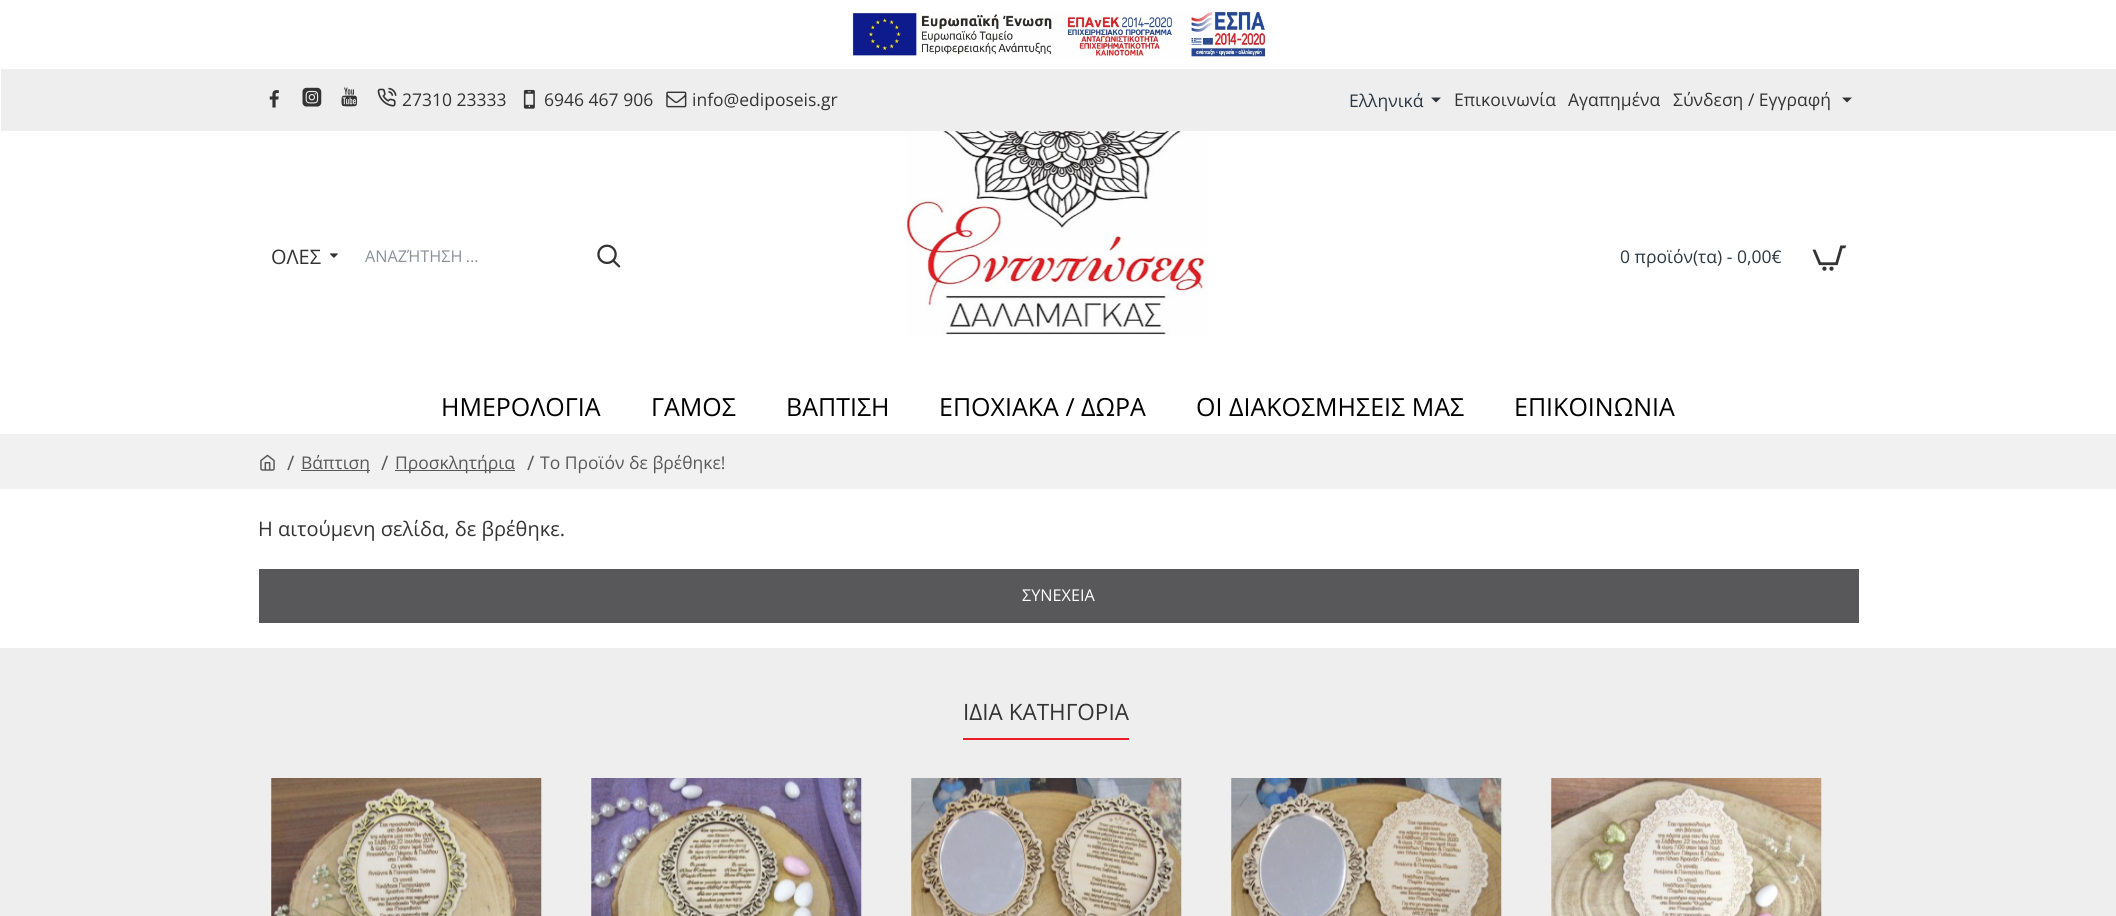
#include <cairo/cairo.h>
#include <math.h>
#include <stddef.h>

static cairo_t *cr;

static void use_color(int r, int g, int b) {
  cairo_set_source_rgb(cr, r / 255.0, g / 255.0, b / 255.0);
}

static void text(double x, double y, const char *s, const char *family, double size, int italic, int bold, int r, int g, int b) {
  cairo_select_font_face(cr, family, italic ? CAIRO_FONT_SLANT_ITALIC : CAIRO_FONT_SLANT_NORMAL,
    bold ? CAIRO_FONT_WEIGHT_BOLD : CAIRO_FONT_WEIGHT_NORMAL);
  cairo_set_font_size(cr, size);
  use_color(r, g, b);
  cairo_move_to(cr, x, y);
  cairo_show_text(cr, s);
}

static void spaced_text(double x, double y, const char *s, double letter, double word) {
  cairo_move_to(cr, x, y);
  while (*s) {
    char ch[5] = {0};
    int n = 0;
    do ch[n++] = *s++; while ((*s & 0xC0) == 0x80);
    cairo_show_text(cr, ch);
    cairo_rel_move_to(cr, letter + word * (*ch == ' '), 0);
  }
}

static void box(double x, double y, double w, double h, int r, int g, int b) {
  use_color(r, g, b);
  cairo_rectangle(cr, x, y, w, h);
  cairo_fill(cr);
}

static void picture(const char *path, double x, double y, double w, double h) {
  cairo_surface_t *image = cairo_image_surface_create_from_png(path);
  cairo_save(cr);
  cairo_set_source_surface(cr, image, x, y);
  cairo_rectangle(cr, x, y, w, h);
  cairo_fill(cr);
  cairo_restore(cr);
  cairo_surface_destroy(image);
}

static void draw(void) {
  use_color(255, 255, 255);
  cairo_paint(cr);
  picture("img_01.png", 852, 11, 414, 47);
  box(1, 69, 2115, 62, 238, 238, 238);
  picture("img_02.png", 269, 90, 10, 18);
  picture("img_03.png", 302, 87, 20, 20);
  picture("img_04.png", 341, 87, 17, 20);
  picture("img_05.png", 377, 87, 20, 20);
  picture("img_06.png", 523, 89, 12, 20);
  picture("img_07.png", 666, 91, 21, 17);
  use_color(44, 54, 64);
  cairo_new_path(cr);
  cairo_move_to(cr, 1431, 97.5);
  cairo_line_to(cr, 1441, 97.5);
  cairo_line_to(cr, 1436, 102.5);
  cairo_close_path(cr);
  cairo_fill(cr);
  use_color(51, 51, 51);
  cairo_new_path(cr);
  cairo_move_to(cr, 1842, 97.5);
  cairo_line_to(cr, 1852, 97.5);
  cairo_line_to(cr, 1847, 102.5);
  cairo_close_path(cr);
  cairo_fill(cr);
  picture("img_08.png", 330, 253, 8, 5);
  picture("img_09.png", 597, 244, 24, 24);
  picture("img_10.png", 906, 131, 302, 204);
  picture("img_11.png", 1812, 245, 35, 26);
  box(0, 434, 2116, 55, 241, 241, 241);
  picture("img_12.png", 260, 454, 15, 17);
  box(301, 470, 69, 1, 88, 88, 90);
  box(395, 470, 120, 1, 88, 88, 90);
  box(259, 569, 1600, 54, 88, 88, 90);
  box(0, 648, 2116, 268, 238, 238, 238);
  box(963, 738, 166, 2, 238, 28, 37);
  picture("img_13.png", 271, 778, 271, 138);
  picture("img_14.png", 591, 778, 271, 138);
  picture("img_15.png", 911, 778, 271, 138);
  picture("img_16.png", 1231, 778, 271, 138);
  picture("img_17.png", 1551, 778, 271, 138);
  text(402, 106, "27310 23333", "Open Sans", 17.5, 0, 0, 51, 51, 51);
  text(544, 106, "6946 467 906", "Open Sans", 17.5, 0, 0, 51, 51, 51);
  text(692, 106, "info@ediposeis.gr", "Open Sans", 17.5, 0, 0, 51, 51, 51);
  text(1349, 107, "Ελληνικά", "Open Sans", 17.5, 0, 0, 44, 54, 64);
  text(1454, 106, "Επικοινωνία", "Open Sans", 17.5, 0, 0, 51, 51, 51);
  text(1568, 106, "Αγαπημένα", "Open Sans", 17.5, 0, 0, 51, 51, 51);
  text(1673, 106, "Σύνδεση / Εγγραφή", "Open Sans", 17.5, 0, 0, 51, 51, 51);
  text(271, 264, "ΟΛΕΣ", "Open Sans", 20, 0, 0, 51, 51, 51);
  cairo_set_font_size(cr, 16.25);
  use_color(139, 145, 152);
  spaced_text(365, 262, "ΑΝΑΖΉΤΗΣΗ ...", 0, -1);
  text(1620, 263, "0 προϊόν(τα) - 0,00€", "Open Sans", 17.5, 0, 0, 44, 54, 64);
  text(441, 416, "ΗΜΕΡΟΛΟΓΙΑ", "Open Sans", 25, 0, 0, 0, 0, 0);
  text(651, 416, "ΓΑΜΟΣ", "Open Sans", 25, 0, 0, 0, 0, 0);
  text(786, 416, "ΒΑΠΤΙΣΗ", "Open Sans", 25, 0, 0, 0, 0, 0);
  text(939, 416, "ΕΠΟXΙΑΚΑ / ΔΩΡΑ", "Open Sans", 25, 0, 0, 0, 0, 0);
  text(1196, 416, "ΟΙ ΔΙΑΚΟΣΜΗΣΕΙΣ ΜΑΣ", "Open Sans", 25, 0, 0, 0, 0, 0);
  text(1514, 416, "ΕΠΙΚΟΙΝΩΝΙΑ", "Open Sans", 25, 0, 0, 0, 0, 0);
  text(287, 470, "/", "Open Sans", 20, 0, 0, 88, 88, 90);
  text(301, 469, "Βάπτιση", "Open Sans", 17.5, 0, 0, 88, 88, 90);
  text(381, 470, "/", "Open Sans", 20, 0, 0, 88, 88, 90);
  text(395, 469, "Προσκλητήρια", "Open Sans", 17.5, 0, 0, 88, 88, 90);
  text(527, 470, "/", "Open Sans", 20, 0, 0, 88, 88, 90);
  text(540, 469, "Το Προϊόν δε βρέθηκε!", "Open Sans", 17.5, 0, 0, 88, 88, 90);
  text(258, 536, "Η αιτούμενη σελίδα, δε βρέθηκε.", "Open Sans", 20, 0, 0, 51, 51, 51);
  text(1022, 601, "ΣΥΝΕΧΕΙΑ", "Open Sans", 16.25, 0, 0, 255, 255, 255);
  text(963, 720, "ΙΔΙΑ ΚΑΤΗΓΟΡΙΑ", "Open Sans", 22.5, 0, 0, 51, 51, 51);
}

int main(void) {
  cairo_surface_t *surface = cairo_image_surface_create(CAIRO_FORMAT_RGB24, 2116, 916);
  cr = cairo_create(surface);
  cairo_font_options_t *options = cairo_font_options_create();
  cairo_font_options_set_hint_metrics(options, CAIRO_HINT_METRICS_OFF);
  cairo_font_options_set_hint_style(options, CAIRO_HINT_STYLE_NONE);
  cairo_set_font_options(cr, options);
  cairo_set_miter_limit(cr, 4);
  draw();
  cairo_surface_write_to_png(surface, "out.png");
  cairo_font_options_destroy(options);
  cairo_destroy(cr);
  cairo_surface_destroy(surface);
  return 0;
}
